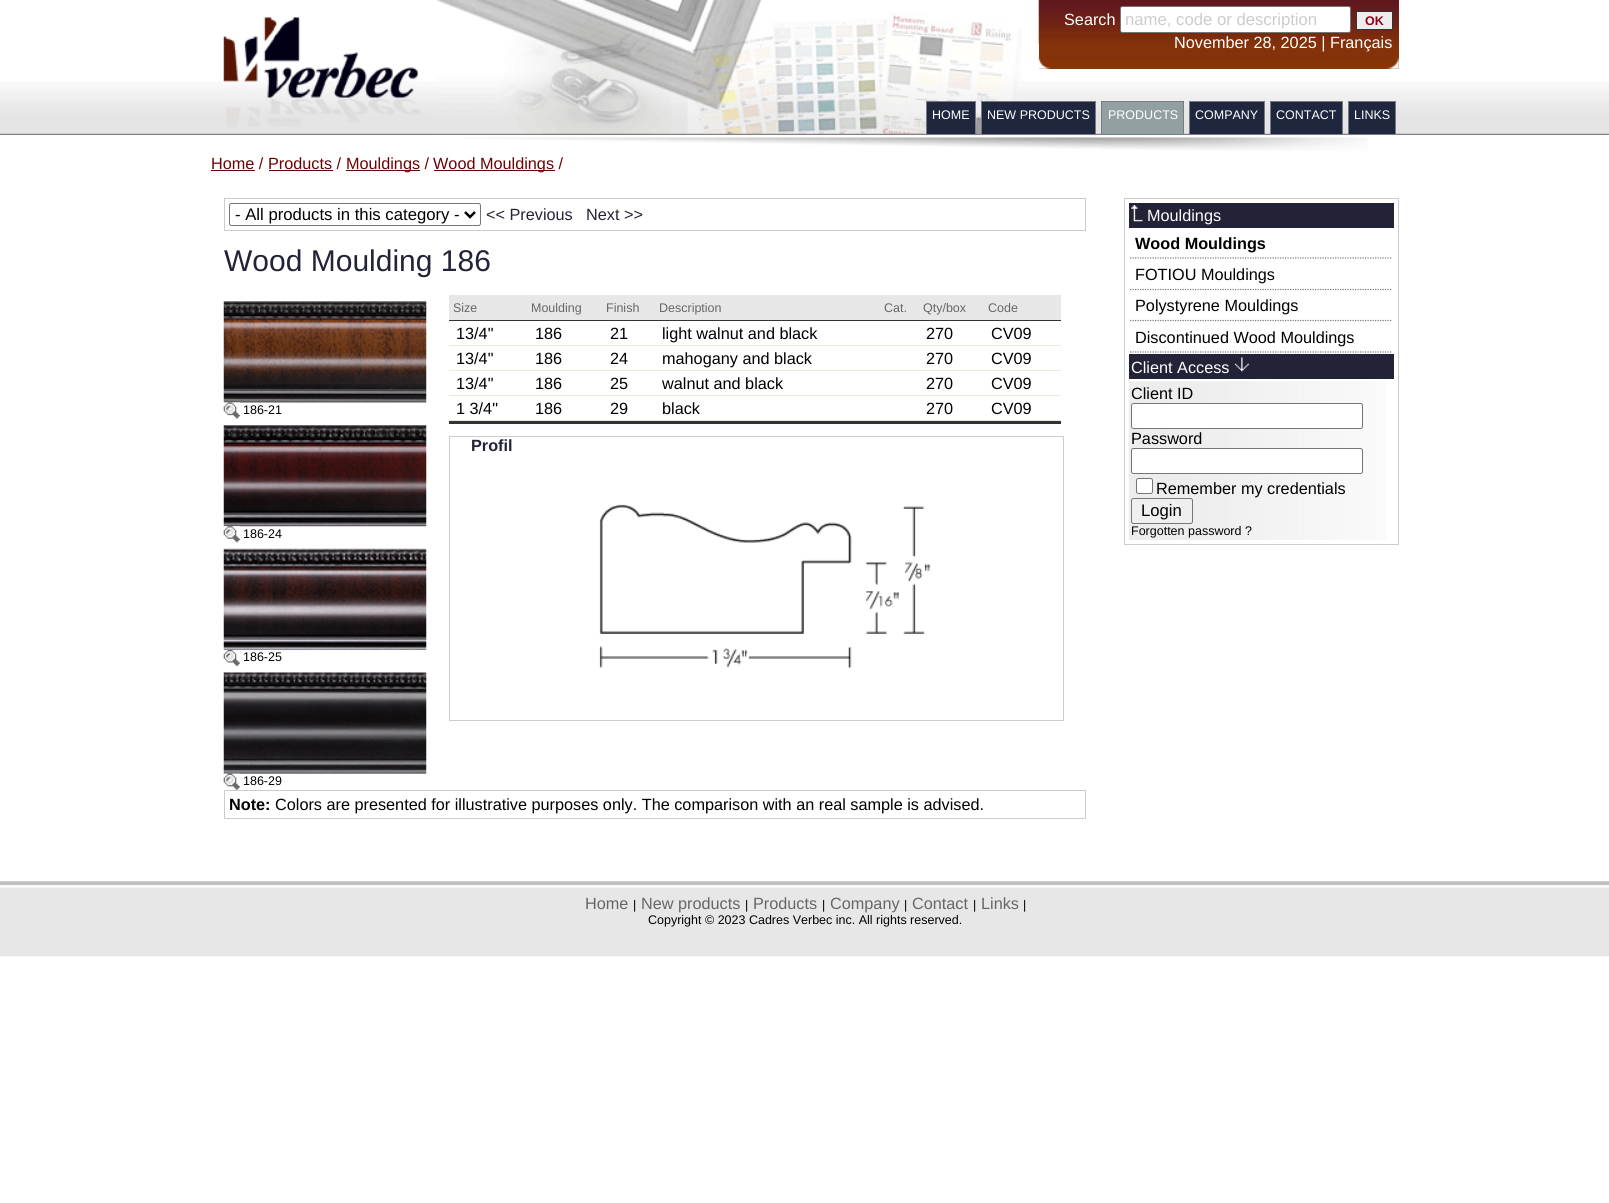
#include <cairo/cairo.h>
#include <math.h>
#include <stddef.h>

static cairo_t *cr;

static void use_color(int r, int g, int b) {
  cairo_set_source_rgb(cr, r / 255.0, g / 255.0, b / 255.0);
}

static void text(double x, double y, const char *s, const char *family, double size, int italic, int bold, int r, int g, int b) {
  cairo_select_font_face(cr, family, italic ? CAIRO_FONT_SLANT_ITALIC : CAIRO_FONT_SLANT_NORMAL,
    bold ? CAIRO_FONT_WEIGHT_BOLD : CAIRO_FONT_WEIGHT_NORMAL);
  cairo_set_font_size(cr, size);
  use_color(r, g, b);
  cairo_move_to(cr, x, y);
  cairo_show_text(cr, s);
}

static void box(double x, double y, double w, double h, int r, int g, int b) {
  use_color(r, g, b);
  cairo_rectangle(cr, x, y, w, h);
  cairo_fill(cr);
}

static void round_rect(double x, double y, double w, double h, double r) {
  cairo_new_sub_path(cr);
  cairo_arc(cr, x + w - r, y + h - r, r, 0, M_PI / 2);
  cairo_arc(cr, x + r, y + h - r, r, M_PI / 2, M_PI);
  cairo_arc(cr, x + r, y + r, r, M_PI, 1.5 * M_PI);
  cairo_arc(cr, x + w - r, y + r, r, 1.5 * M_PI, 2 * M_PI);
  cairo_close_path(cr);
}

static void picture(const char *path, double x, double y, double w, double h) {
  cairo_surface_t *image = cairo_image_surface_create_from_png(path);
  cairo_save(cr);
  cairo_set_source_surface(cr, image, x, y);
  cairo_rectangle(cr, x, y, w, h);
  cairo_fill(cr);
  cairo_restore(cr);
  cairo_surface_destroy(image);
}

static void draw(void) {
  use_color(255, 255, 255);
  cairo_paint(cr);
  picture("img_01.png", 0, 81, 1609, 54);
  picture("img_02.png", 436, 0, 586, 135);
  picture("img_03.png", 223, 17, 197, 110);
  box(1039, 0, 360, 69, 131, 50, 9);
  picture("img_04.png", 1038, 0, 361, 44);
  use_color(255, 255, 255);
  round_rect(1120.5, 6.5, 230, 26, 2);
  cairo_fill_preserve(cr);
  use_color(118, 118, 118);
  cairo_set_line_width(cr, 1);
  cairo_stroke(cr);
  use_color(237, 237, 237);
  cairo_rectangle(cr, 1356.5, 11.5, 36, 18);
  cairo_fill_preserve(cr);
  use_color(51, 51, 51);
  cairo_stroke(cr);
  picture("img_05.png", 1038, 57, 361, 12);
  use_color(30, 39, 62);
  cairo_rectangle(cr, 926.5, 101.5, 49, 33);
  cairo_fill_preserve(cr);
  use_color(120, 122, 132);
  cairo_stroke(cr);
  use_color(30, 39, 62);
  cairo_rectangle(cr, 981.5, 101.5, 114, 33);
  cairo_fill_preserve(cr);
  use_color(120, 122, 132);
  cairo_stroke(cr);
  use_color(146, 160, 161);
  cairo_rectangle(cr, 1101.5, 101.5, 82, 33);
  cairo_fill_preserve(cr);
  use_color(120, 122, 132);
  cairo_stroke(cr);
  use_color(30, 39, 62);
  cairo_rectangle(cr, 1189.5, 101.5, 75, 33);
  cairo_fill_preserve(cr);
  use_color(120, 122, 132);
  cairo_stroke(cr);
  use_color(30, 39, 62);
  cairo_rectangle(cr, 1270.5, 101.5, 72, 33);
  cairo_fill_preserve(cr);
  use_color(120, 122, 132);
  cairo_stroke(cr);
  use_color(30, 39, 62);
  cairo_rectangle(cr, 1348.5, 101.5, 47, 33);
  cairo_fill_preserve(cr);
  use_color(120, 122, 132);
  cairo_stroke(cr);
  picture("img_06.png", 464, 137, 904, 14);
  box(211, 170, 44, 1, 106, 4, 4);
  box(346, 170, 74, 1, 106, 4, 4);
  box(434, 170, 121, 1, 106, 4, 4);
  box(269, 170, 64, 1, 106, 4, 4);
  cairo_rectangle(cr, 224.5, 198.5, 861, 32);
  use_color(204, 204, 204);
  cairo_stroke(cr);
  round_rect(229.5, 203.5, 251, 22, 2);
  use_color(118, 118, 118);
  cairo_stroke(cr);
  cairo_new_path(cr);
  cairo_move_to(cr, 465, 212);
  cairo_line_to(cr, 470, 217);
  cairo_line_to(cr, 475, 212);
  use_color(0, 0, 0);
  cairo_set_line_width(cr, 2.5);
  cairo_stroke(cr);
  box(449, 421, 612, 3, 51, 51, 51);
  box(449, 295, 612, 25, 231, 231, 231);
  box(449, 320, 612, 1, 51, 51, 51);
  box(449, 345, 612, 1, 240, 232, 216);
  box(449, 370, 612, 1, 240, 232, 216);
  box(449, 395, 612, 1, 240, 232, 216);
  box(449, 420, 612, 1, 240, 232, 216);
  picture("img_07.png", 223, 301, 204, 102);
  picture("img_08.png", 223, 402, 17, 17);
  picture("img_09.png", 223, 425, 204, 102);
  picture("img_10.png", 223, 526, 17, 17);
  picture("img_11.png", 223, 548, 204, 102);
  picture("img_12.png", 223, 650, 17, 17);
  picture("img_13.png", 223, 672, 204, 102);
  picture("img_14.png", 223, 773, 17, 17);
  cairo_rectangle(cr, 449.5, 436.5, 614, 284);
  use_color(204, 204, 204);
  cairo_set_line_width(cr, 1);
  cairo_stroke(cr);
  picture("img_15.png", 599, 504, 332, 164);
  cairo_rectangle(cr, 224.5, 790.5, 861, 28);
  cairo_stroke(cr);
  cairo_rectangle(cr, 1124.5, 198.5, 274, 346);
  cairo_stroke(cr);
  box(1129, 203, 265, 25, 35, 35, 56);
  picture("img_16.png", 1131, 205, 12, 17);
  cairo_new_path(cr);
  cairo_move_to(cr, 1130, 258);
  cairo_line_to(cr, 1392.5, 258);
  use_color(120, 122, 132);
  cairo_set_line_width(cr, 1.2);
  cairo_set_dash(cr, (double[]){1.25, 1.25}, 2, 0);
  cairo_stroke(cr);
  cairo_new_path(cr);
  cairo_move_to(cr, 1130, 289.5);
  cairo_line_to(cr, 1392.5, 289.5);
  cairo_stroke(cr);
  cairo_new_path(cr);
  cairo_move_to(cr, 1130, 320.5);
  cairo_line_to(cr, 1392.5, 320.5);
  cairo_stroke(cr);
  cairo_new_path(cr);
  cairo_move_to(cr, 1130, 352);
  cairo_line_to(cr, 1392.5, 352);
  cairo_stroke(cr);
  box(1129, 354, 265, 25, 35, 35, 56);
  picture("img_17.png", 1234, 357, 15, 15);
  picture("img_18.png", 1128, 381, 258, 159);
  use_color(255, 255, 255);
  round_rect(1131.5, 403.5, 231, 25, 2);
  cairo_fill_preserve(cr);
  use_color(118, 118, 118);
  cairo_set_line_width(cr, 1);
  cairo_set_dash(cr, NULL, 0, 0);
  cairo_stroke(cr);
  use_color(255, 255, 255);
  round_rect(1131.5, 448.5, 231, 25, 2);
  cairo_fill_preserve(cr);
  use_color(118, 118, 118);
  cairo_stroke(cr);
  use_color(255, 255, 255);
  round_rect(1136.5, 478.5, 16, 15, 2);
  cairo_fill_preserve(cr);
  use_color(118, 118, 118);
  cairo_stroke(cr);
  use_color(239, 239, 239);
  round_rect(1131.5, 498.5, 61, 25, 2);
  cairo_fill_preserve(cr);
  use_color(118, 118, 118);
  cairo_stroke(cr);
  picture("img_19.png", 0, 881, 1609, 76);
  text(1064, 25, "Search", "Liberation Sans", 16.25, 0, 0, 255, 255, 255);
  text(1125, 25, "name, code or description", "Liberation Sans", 16.7, 0, 0, 204, 204, 204);
  text(1365, 25, "OK", "Liberation Sans", 12.5, 0, 1, 145, 0, 24);
  text(1174, 48, "November 28, 2025 | Français", "Liberation Sans", 16.25, 0, 0, 255, 255, 255);
  text(932, 119, "HOME", "Liberation Sans", 12.5, 0, 0, 255, 255, 255);
  text(987, 119, "NEW PRODUCTS", "Liberation Sans", 12.5, 0, 0, 255, 255, 255);
  text(1108, 119, "PRODUCTS", "Liberation Sans", 12.5, 0, 0, 255, 255, 255);
  text(1195, 119, "COMPANY", "Liberation Sans", 12.5, 0, 0, 255, 255, 255);
  text(1276, 119, "CONTACT", "Liberation Sans", 12.5, 0, 0, 255, 255, 255);
  text(1354, 119, "LINKS", "Liberation Sans", 12.5, 0, 0, 255, 255, 255);
  text(211, 169, "Home / Products /", "Liberation Sans", 16.25, 0, 0, 106, 4, 4);
  text(346, 169, "Mouldings /", "Liberation Sans", 16.25, 0, 0, 106, 4, 4);
  text(433, 169, "Wood Mouldings /", "Liberation Sans", 16.25, 0, 0, 106, 4, 4);
  text(235, 220, "- All products in this category -", "Liberation Sans", 16.7, 0, 0, 0, 0, 0);
  text(486, 220, "<< Previous", "Liberation Sans", 16.25, 0, 0, 35, 35, 56);
  text(586, 220, "Next >>", "Liberation Sans", 16.25, 0, 0, 35, 35, 56);
  text(224, 271, "Wood Moulding 186", "Liberation Sans", 30, 0, 0, 35, 35, 56);
  text(453, 312, "Size", "Liberation Sans", 12.5, 0, 0, 102, 102, 102);
  text(531, 312, "Moulding", "Liberation Sans", 12.5, 0, 0, 102, 102, 102);
  text(606, 312, "Finish", "Liberation Sans", 12.5, 0, 0, 102, 102, 102);
  text(659, 312, "Description", "Liberation Sans", 12.5, 0, 0, 102, 102, 102);
  text(884, 312, "Cat.", "Liberation Sans", 12.5, 0, 0, 102, 102, 102);
  text(923, 312, "Qty/box", "Liberation Sans", 12.5, 0, 0, 102, 102, 102);
  text(988, 312, "Code", "Liberation Sans", 12.5, 0, 0, 102, 102, 102);
  text(456, 339, "13/4\"", "Liberation Sans", 16.25, 0, 0, 0, 0, 0);
  text(535, 339, "186", "Liberation Sans", 16.25, 0, 0, 0, 0, 0);
  text(610, 339, "21", "Liberation Sans", 16.25, 0, 0, 0, 0, 0);
  text(662, 339, "light walnut and black", "Liberation Sans", 16.25, 0, 0, 0, 0, 0);
  text(926, 339, "270", "Liberation Sans", 16.25, 0, 0, 0, 0, 0);
  text(991, 339, "CV09", "Liberation Sans", 16.25, 0, 0, 0, 0, 0);
  text(456, 364, "13/4\"", "Liberation Sans", 16.25, 0, 0, 0, 0, 0);
  text(535, 364, "186", "Liberation Sans", 16.25, 0, 0, 0, 0, 0);
  text(610, 364, "24", "Liberation Sans", 16.25, 0, 0, 0, 0, 0);
  text(662, 364, "mahogany and black", "Liberation Sans", 16.25, 0, 0, 0, 0, 0);
  text(926, 364, "270", "Liberation Sans", 16.25, 0, 0, 0, 0, 0);
  text(991, 364, "CV09", "Liberation Sans", 16.25, 0, 0, 0, 0, 0);
  text(456, 389, "13/4\"", "Liberation Sans", 16.25, 0, 0, 0, 0, 0);
  text(535, 389, "186", "Liberation Sans", 16.25, 0, 0, 0, 0, 0);
  text(610, 389, "25", "Liberation Sans", 16.25, 0, 0, 0, 0, 0);
  text(662, 389, "walnut and black", "Liberation Sans", 16.25, 0, 0, 0, 0, 0);
  text(926, 389, "270", "Liberation Sans", 16.25, 0, 0, 0, 0, 0);
  text(991, 389, "CV09", "Liberation Sans", 16.25, 0, 0, 0, 0, 0);
  text(456, 414, "1 3/4\"", "Liberation Sans", 16.25, 0, 0, 0, 0, 0);
  text(535, 414, "186", "Liberation Sans", 16.25, 0, 0, 0, 0, 0);
  text(610, 414, "29", "Liberation Sans", 16.25, 0, 0, 0, 0, 0);
  text(662, 414, "black", "Liberation Sans", 16.25, 0, 0, 0, 0, 0);
  text(926, 414, "270", "Liberation Sans", 16.25, 0, 0, 0, 0, 0);
  text(991, 414, "CV09", "Liberation Sans", 16.25, 0, 0, 0, 0, 0);
  text(243, 414, "186-21", "Liberation Sans", 12.5, 0, 0, 0, 0, 0);
  text(243, 538, "186-24", "Liberation Sans", 12.5, 0, 0, 0, 0, 0);
  text(243, 661, "186-25", "Liberation Sans", 12.5, 0, 0, 0, 0, 0);
  text(243, 785, "186-29", "Liberation Sans", 12.5, 0, 0, 0, 0, 0);
  text(471, 451, "Profil", "Liberation Sans", 16.25, 0, 1, 35, 35, 56);
  text(229, 810, "Note:", "Liberation Sans", 16.25, 0, 1, 0, 0, 0);
  text(275, 810, "Colors are presented for illustrative purposes only. The comparison with an real sample is advised.", "Liberation Sans", 16.25, 0, 0, 0, 0, 0);
  text(1147, 221, "Mouldings", "Liberation Sans", 16.25, 0, 0, 255, 255, 255);
  text(1135, 249, "Wood Mouldings", "Liberation Sans", 16.25, 0, 1, 0, 0, 0);
  text(1135, 280, "FOTIOU Mouldings", "Liberation Sans", 16.25, 0, 0, 0, 0, 0);
  text(1135, 311, "Polystyrene Mouldings", "Liberation Sans", 16.25, 0, 0, 0, 0, 0);
  text(1135, 343, "Discontinued Wood Mouldings", "Liberation Sans", 16.25, 0, 0, 0, 0, 0);
  text(1131, 373, "Client Access", "Liberation Sans", 16.25, 0, 0, 255, 255, 255);
  text(1131, 399, "Client ID", "Liberation Sans", 16.25, 0, 0, 0, 0, 0);
  text(1131, 444, "Password", "Liberation Sans", 16.25, 0, 0, 0, 0, 0);
  text(1156, 494, "Remember my credentials", "Liberation Sans", 16.25, 0, 0, 0, 0, 0);
  text(1141, 516, "Login", "Liberation Sans", 16.7, 0, 0, 0, 0, 0);
  text(1131, 535, "Forgotten password ?", "Liberation Sans", 12.5, 0, 0, 0, 0, 0);
  text(585, 909, "Home", "Liberation Sans", 16.25, 0, 0, 102, 102, 102);
  text(633, 909, "|", "Liberation Sans", 12.5, 0, 0, 0, 0, 0);
  text(641, 909, "New products", "Liberation Sans", 16.25, 0, 0, 102, 102, 102);
  text(745, 909, "|", "Liberation Sans", 12.5, 0, 0, 0, 0, 0);
  text(753, 909, "Products", "Liberation Sans", 16.25, 0, 0, 102, 102, 102);
  text(822, 909, "|", "Liberation Sans", 12.5, 0, 0, 0, 0, 0);
  text(830, 909, "Company", "Liberation Sans", 16.25, 0, 0, 102, 102, 102);
  text(904, 909, "|", "Liberation Sans", 12.5, 0, 0, 0, 0, 0);
  text(912, 909, "Contact", "Liberation Sans", 16.25, 0, 0, 102, 102, 102);
  text(973, 909, "|", "Liberation Sans", 12.5, 0, 0, 0, 0, 0);
  text(981, 909, "Links", "Liberation Sans", 16.25, 0, 0, 102, 102, 102);
  text(1023, 909, "|", "Liberation Sans", 12.5, 0, 0, 0, 0, 0);
  text(648, 924, "Copyright © 2023 Cadres Verbec inc. All rights reserved.", "Liberation Sans", 12.5, 0, 0, 0, 0, 0);
}

int main(void) {
  cairo_surface_t *surface = cairo_image_surface_create(CAIRO_FORMAT_RGB24, 1609, 1203);
  cr = cairo_create(surface);
  cairo_font_options_t *options = cairo_font_options_create();
  cairo_font_options_set_hint_metrics(options, CAIRO_HINT_METRICS_OFF);
  cairo_font_options_set_hint_style(options, CAIRO_HINT_STYLE_NONE);
  cairo_set_font_options(cr, options);
  cairo_set_miter_limit(cr, 4);
  draw();
  cairo_surface_write_to_png(surface, "out.png");
  cairo_font_options_destroy(options);
  cairo_destroy(cr);
  cairo_surface_destroy(surface);
  return 0;
}
